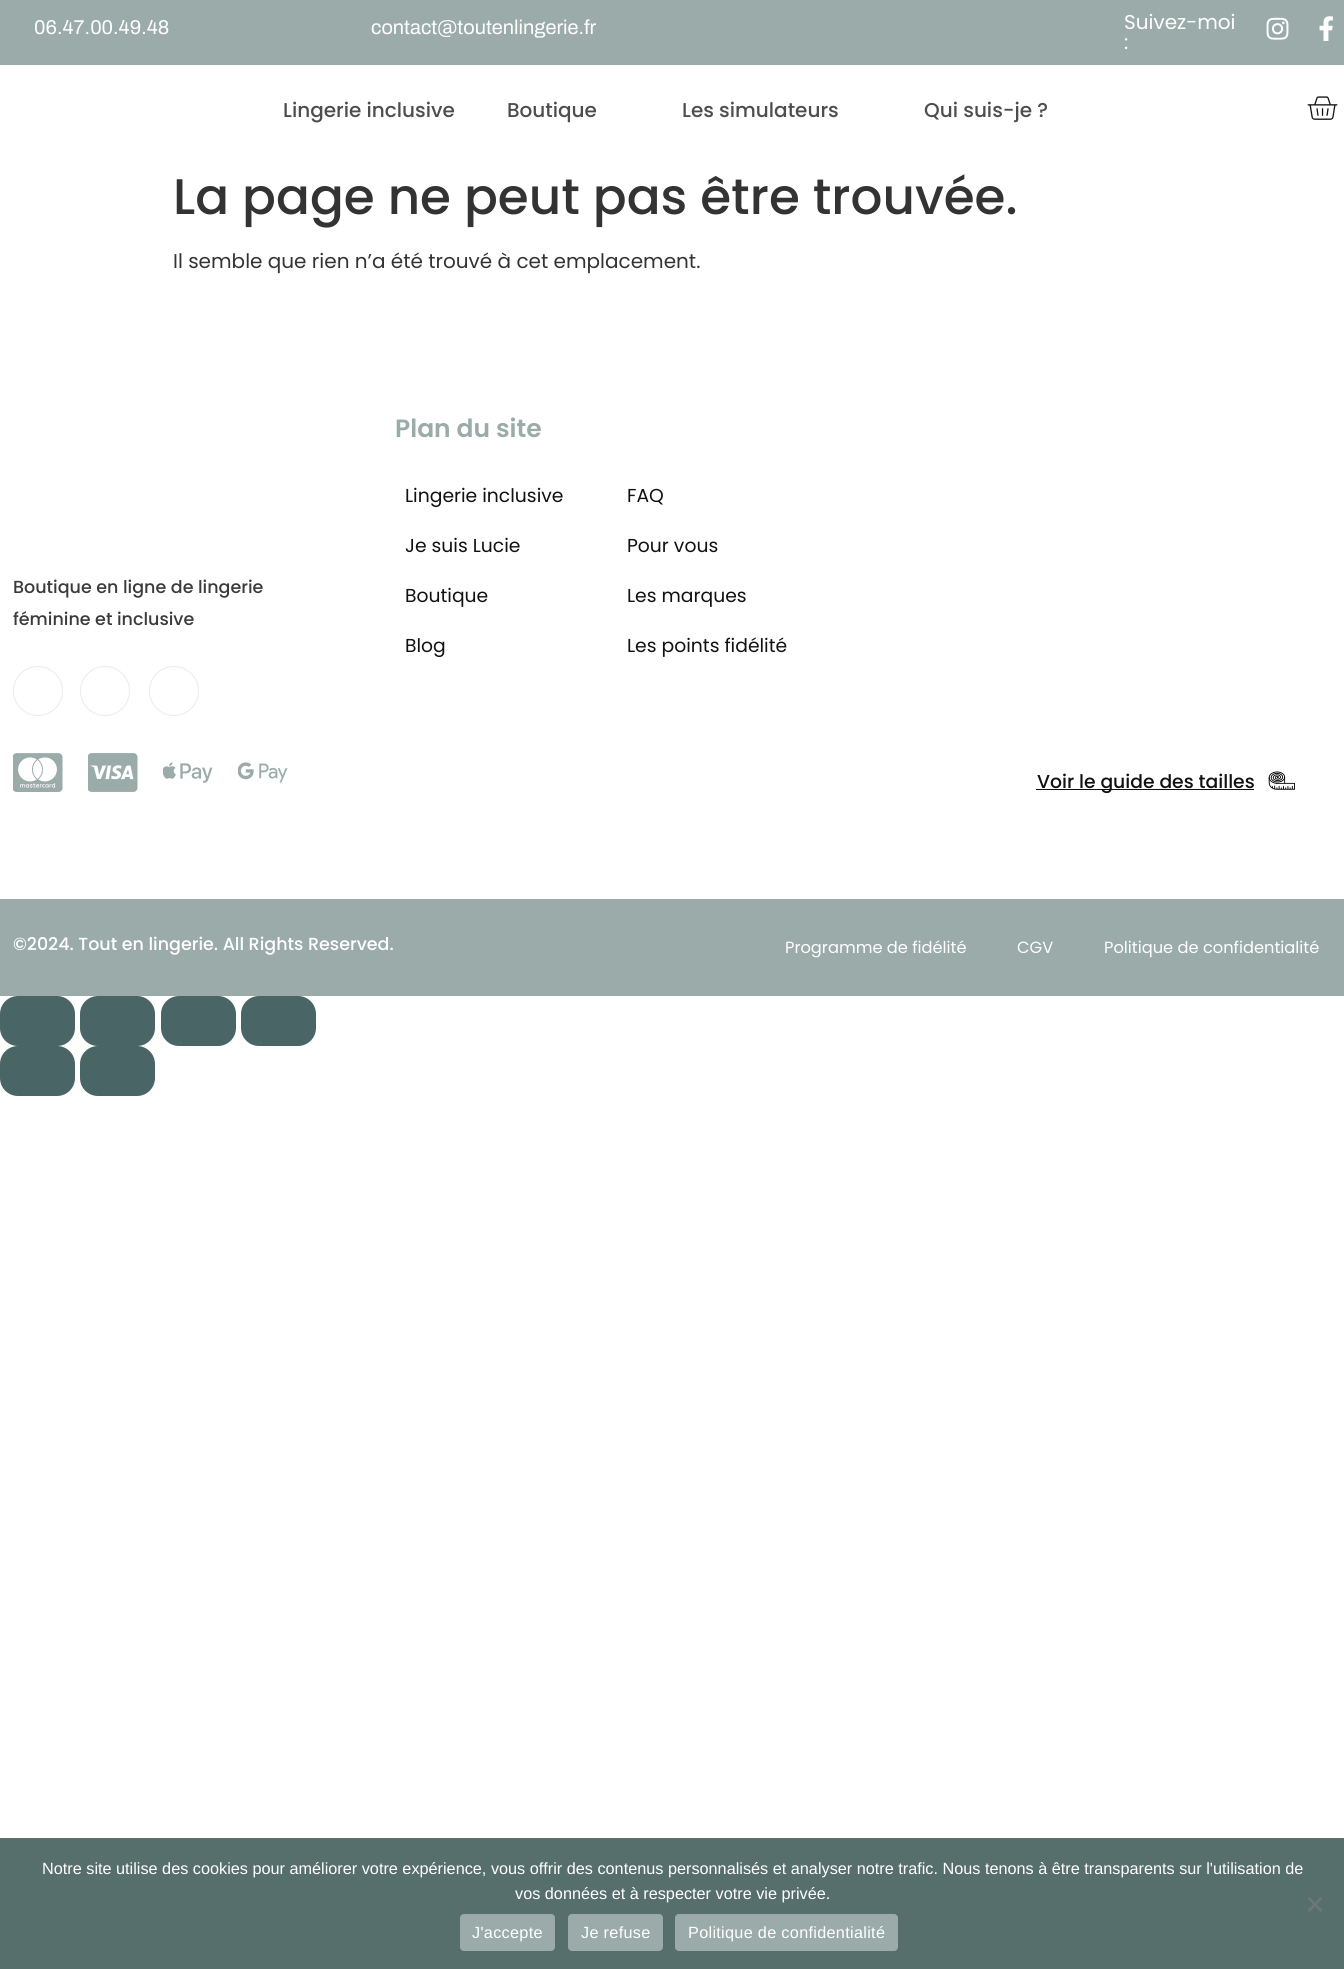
#include <cairo/cairo.h>
#include <math.h>
#include <stddef.h>

static cairo_t *cr;

static void use_color(int r, int g, int b) {
  cairo_set_source_rgb(cr, r / 255.0, g / 255.0, b / 255.0);
}

static void text(double x, double y, const char *s, const char *family, double size, int italic, int bold, int r, int g, int b) {
  cairo_select_font_face(cr, family, italic ? CAIRO_FONT_SLANT_ITALIC : CAIRO_FONT_SLANT_NORMAL,
    bold ? CAIRO_FONT_WEIGHT_BOLD : CAIRO_FONT_WEIGHT_NORMAL);
  cairo_set_font_size(cr, size);
  use_color(r, g, b);
  cairo_move_to(cr, x, y);
  cairo_show_text(cr, s);
}

static void spaced_text(double x, double y, const char *s, double letter, double word) {
  cairo_move_to(cr, x, y);
  while (*s) {
    char ch[5] = {0};
    int n = 0;
    do ch[n++] = *s++; while ((*s & 0xC0) == 0x80);
    cairo_show_text(cr, ch);
    cairo_rel_move_to(cr, letter + word * (*ch == ' '), 0);
  }
}

static void box(double x, double y, double w, double h, int r, int g, int b) {
  use_color(r, g, b);
  cairo_rectangle(cr, x, y, w, h);
  cairo_fill(cr);
}

static void round_rect(double x, double y, double w, double h, double r) {
  cairo_new_sub_path(cr);
  cairo_arc(cr, x + w - r, y + h - r, r, 0, M_PI / 2);
  cairo_arc(cr, x + r, y + h - r, r, M_PI / 2, M_PI);
  cairo_arc(cr, x + r, y + r, r, M_PI, 1.5 * M_PI);
  cairo_arc(cr, x + w - r, y + r, r, 1.5 * M_PI, 2 * M_PI);
  cairo_close_path(cr);
}

static void picture(const char *path, double x, double y, double w, double h) {
  cairo_surface_t *image = cairo_image_surface_create_from_png(path);
  cairo_save(cr);
  cairo_set_source_surface(cr, image, x, y);
  cairo_rectangle(cr, x, y, w, h);
  cairo_fill(cr);
  cairo_restore(cr);
  cairo_surface_destroy(image);
}

static void draw(void) {
  use_color(255, 255, 255);
  cairo_paint(cr);
  box(0, 0, 1344, 65, 154, 171, 169);
  picture("img_01.png", 1266, 17, 23, 23);
  picture("img_02.png", 1319, 16, 14, 25);
  picture("img_03.png", 1307, 96, 31, 24);
  cairo_arc(cr, 38, 691, 24.5, 0, 2 * M_PI);
  use_color(234, 235, 241);
  cairo_set_line_width(cr, 1);
  cairo_stroke(cr);
  cairo_arc(cr, 105, 691, 24.5, 0, 2 * M_PI);
  cairo_stroke(cr);
  cairo_arc(cr, 174, 691, 24.5, 0, 2 * M_PI);
  cairo_stroke(cr);
  picture("img_04.png", 13, 753, 50, 39);
  picture("img_05.png", 88, 753, 50, 39);
  picture("img_06.png", 163, 762, 50, 21);
  picture("img_07.png", 238, 762, 50, 21);
  box(1036, 789, 218, 1, 13, 13, 13);
  picture("img_08.png", 1268, 771, 27, 19);
  box(0, 899, 1344, 97, 154, 171, 169);
  use_color(74, 101, 101);
  round_rect(0, 996, 75, 50, 18);
  cairo_fill(cr);
  round_rect(80, 996, 75, 50, 18);
  cairo_fill(cr);
  round_rect(161, 996, 75, 50, 18);
  cairo_fill(cr);
  round_rect(241, 996, 75, 50, 18);
  cairo_fill(cr);
  round_rect(0, 1046, 75, 50, 18);
  cairo_fill(cr);
  round_rect(80, 1046, 75, 50, 18);
  cairo_fill(cr);
  box(0, 1838, 1344, 131, 86, 111, 109);
  use_color(107, 120, 119);
  cairo_new_path(cr);
  cairo_move_to(cr, 1320.5, 1897);
  cairo_line_to(cr, 1322.5, 1898.5);
  cairo_line_to(cr, 1309.5, 1912);
  cairo_line_to(cr, 1307.5, 1910);
  cairo_close_path(cr);
  cairo_fill(cr);
  cairo_new_path(cr);
  cairo_move_to(cr, 1307.5, 1898.5);
  cairo_line_to(cr, 1309.5, 1897);
  cairo_line_to(cr, 1322.5, 1910);
  cairo_line_to(cr, 1320.5, 1912);
  cairo_close_path(cr);
  cairo_fill(cr);
  use_color(154, 171, 169);
  round_rect(460, 1914, 95, 37, 4);
  cairo_fill(cr);
  round_rect(568, 1914, 95, 37, 4);
  cairo_fill(cr);
  round_rect(675, 1914, 223, 37, 4);
  cairo_fill(cr);
  text(34, 34, "06.47.00.49.48", "Archivo", 20, 0, 0, 255, 255, 255);
  text(371, 34, "contact@toutenlingerie.fr", "Archivo", 20, 0, 0, 255, 255, 255);
  text(1124, 29, "Suivez-moi", "Poppins", 20, 0, 0, 255, 255, 255);
  text(1124, 49, ":", "Poppins", 20, 0, 0, 255, 255, 255);
  text(283, 117, "Lingerie inclusive", "Poppins Medium", 20, 0, 0, 80, 76, 76);
  text(507, 117, "Boutique", "Poppins Medium", 20, 0, 0, 80, 76, 76);
  text(682, 117, "Les simulateurs", "Poppins Medium", 20, 0, 0, 80, 76, 76);
  text(924, 117, "Qui suis-je ?", "Poppins Medium", 20, 0, 0, 80, 76, 76);
  text(173, 214, "La page ne peut pas être trouvée.", "Poppins Medium", 50, 0, 0, 51, 51, 51);
  text(173, 268, "Il semble que rien n’a été trouvé à cet emplacement.", "Poppins", 20, 0, 0, 51, 51, 51);
  text(13, 593, "Boutique en ligne de lingerie", "Poppins Medium", 17.5, 0, 0, 59, 59, 59);
  text(13, 625, "féminine et inclusive", "Poppins Medium", 17.5, 0, 0, 59, 59, 59);
  text(395, 437, "Plan du site", "Poppins SemiBold", 25, 0, 0, 154, 171, 169);
  text(405, 502, "Lingerie inclusive", "Poppins", 18.75, 0, 0, 17, 17, 17);
  text(405, 552, "Je suis Lucie", "Poppins", 18.75, 0, 0, 17, 17, 17);
  text(405, 602, "Boutique", "Poppins", 18.75, 0, 0, 17, 17, 17);
  text(405, 652, "Blog", "Poppins", 18.75, 0, 0, 17, 17, 17);
  text(627, 502, "FAQ", "Poppins", 18.75, 0, 0, 17, 17, 17);
  text(627, 552, "Pour vous", "Poppins", 18.75, 0, 0, 17, 17, 17);
  text(627, 602, "Les marques", "Poppins", 18.75, 0, 0, 17, 17, 17);
  text(627, 652, "Les points fidélité", "Poppins", 18.75, 0, 0, 17, 17, 17);
  text(1037, 788, "Voir le guide des tailles", "Poppins Medium", 18.75, 0, 0, 17, 17, 17);
  text(13, 950, "©2024. Tout en lingerie. All Rights Reserved.", "Poppins Medium", 17.5, 0, 0, 255, 255, 255);
  text(785, 953, "Programme de fidélité", "Poppins", 16.25, 0, 0, 255, 255, 255);
  text(1017, 953, "CGV", "Poppins", 16.25, 0, 0, 255, 255, 255);
  text(1104, 953, "Politique de confidentialité", "Poppins", 16.25, 0, 0, 255, 255, 255);
  text(42, 1874, "Notre site utilise des cookies pour améliorer votre expérience, vous offrir des contenus personnalisés et analyser notre trafic. Nous tenons à être transparents sur l'utilisation de", "Liberation Sans", 16.25, 0, 0, 255, 255, 255);
  text(515, 1899, "vos données et à respecter votre vie privée.", "Liberation Sans", 16.25, 0, 0, 255, 255, 255);
  spaced_text(472, 1938, "J'accepte", 0.3, 0);
  spaced_text(581, 1938, "Je refuse", 0.3, 0);
  spaced_text(688, 1938, "Politique de confidentialité", 0.3, 0);
}

int main(void) {
  cairo_surface_t *surface = cairo_image_surface_create(CAIRO_FORMAT_RGB24, 1344, 1969);
  cr = cairo_create(surface);
  cairo_font_options_t *options = cairo_font_options_create();
  cairo_font_options_set_hint_metrics(options, CAIRO_HINT_METRICS_OFF);
  cairo_font_options_set_hint_style(options, CAIRO_HINT_STYLE_NONE);
  cairo_set_font_options(cr, options);
  cairo_set_miter_limit(cr, 4);
  draw();
  cairo_surface_write_to_png(surface, "out.png");
  cairo_font_options_destroy(options);
  cairo_destroy(cr);
  cairo_surface_destroy(surface);
  return 0;
}
